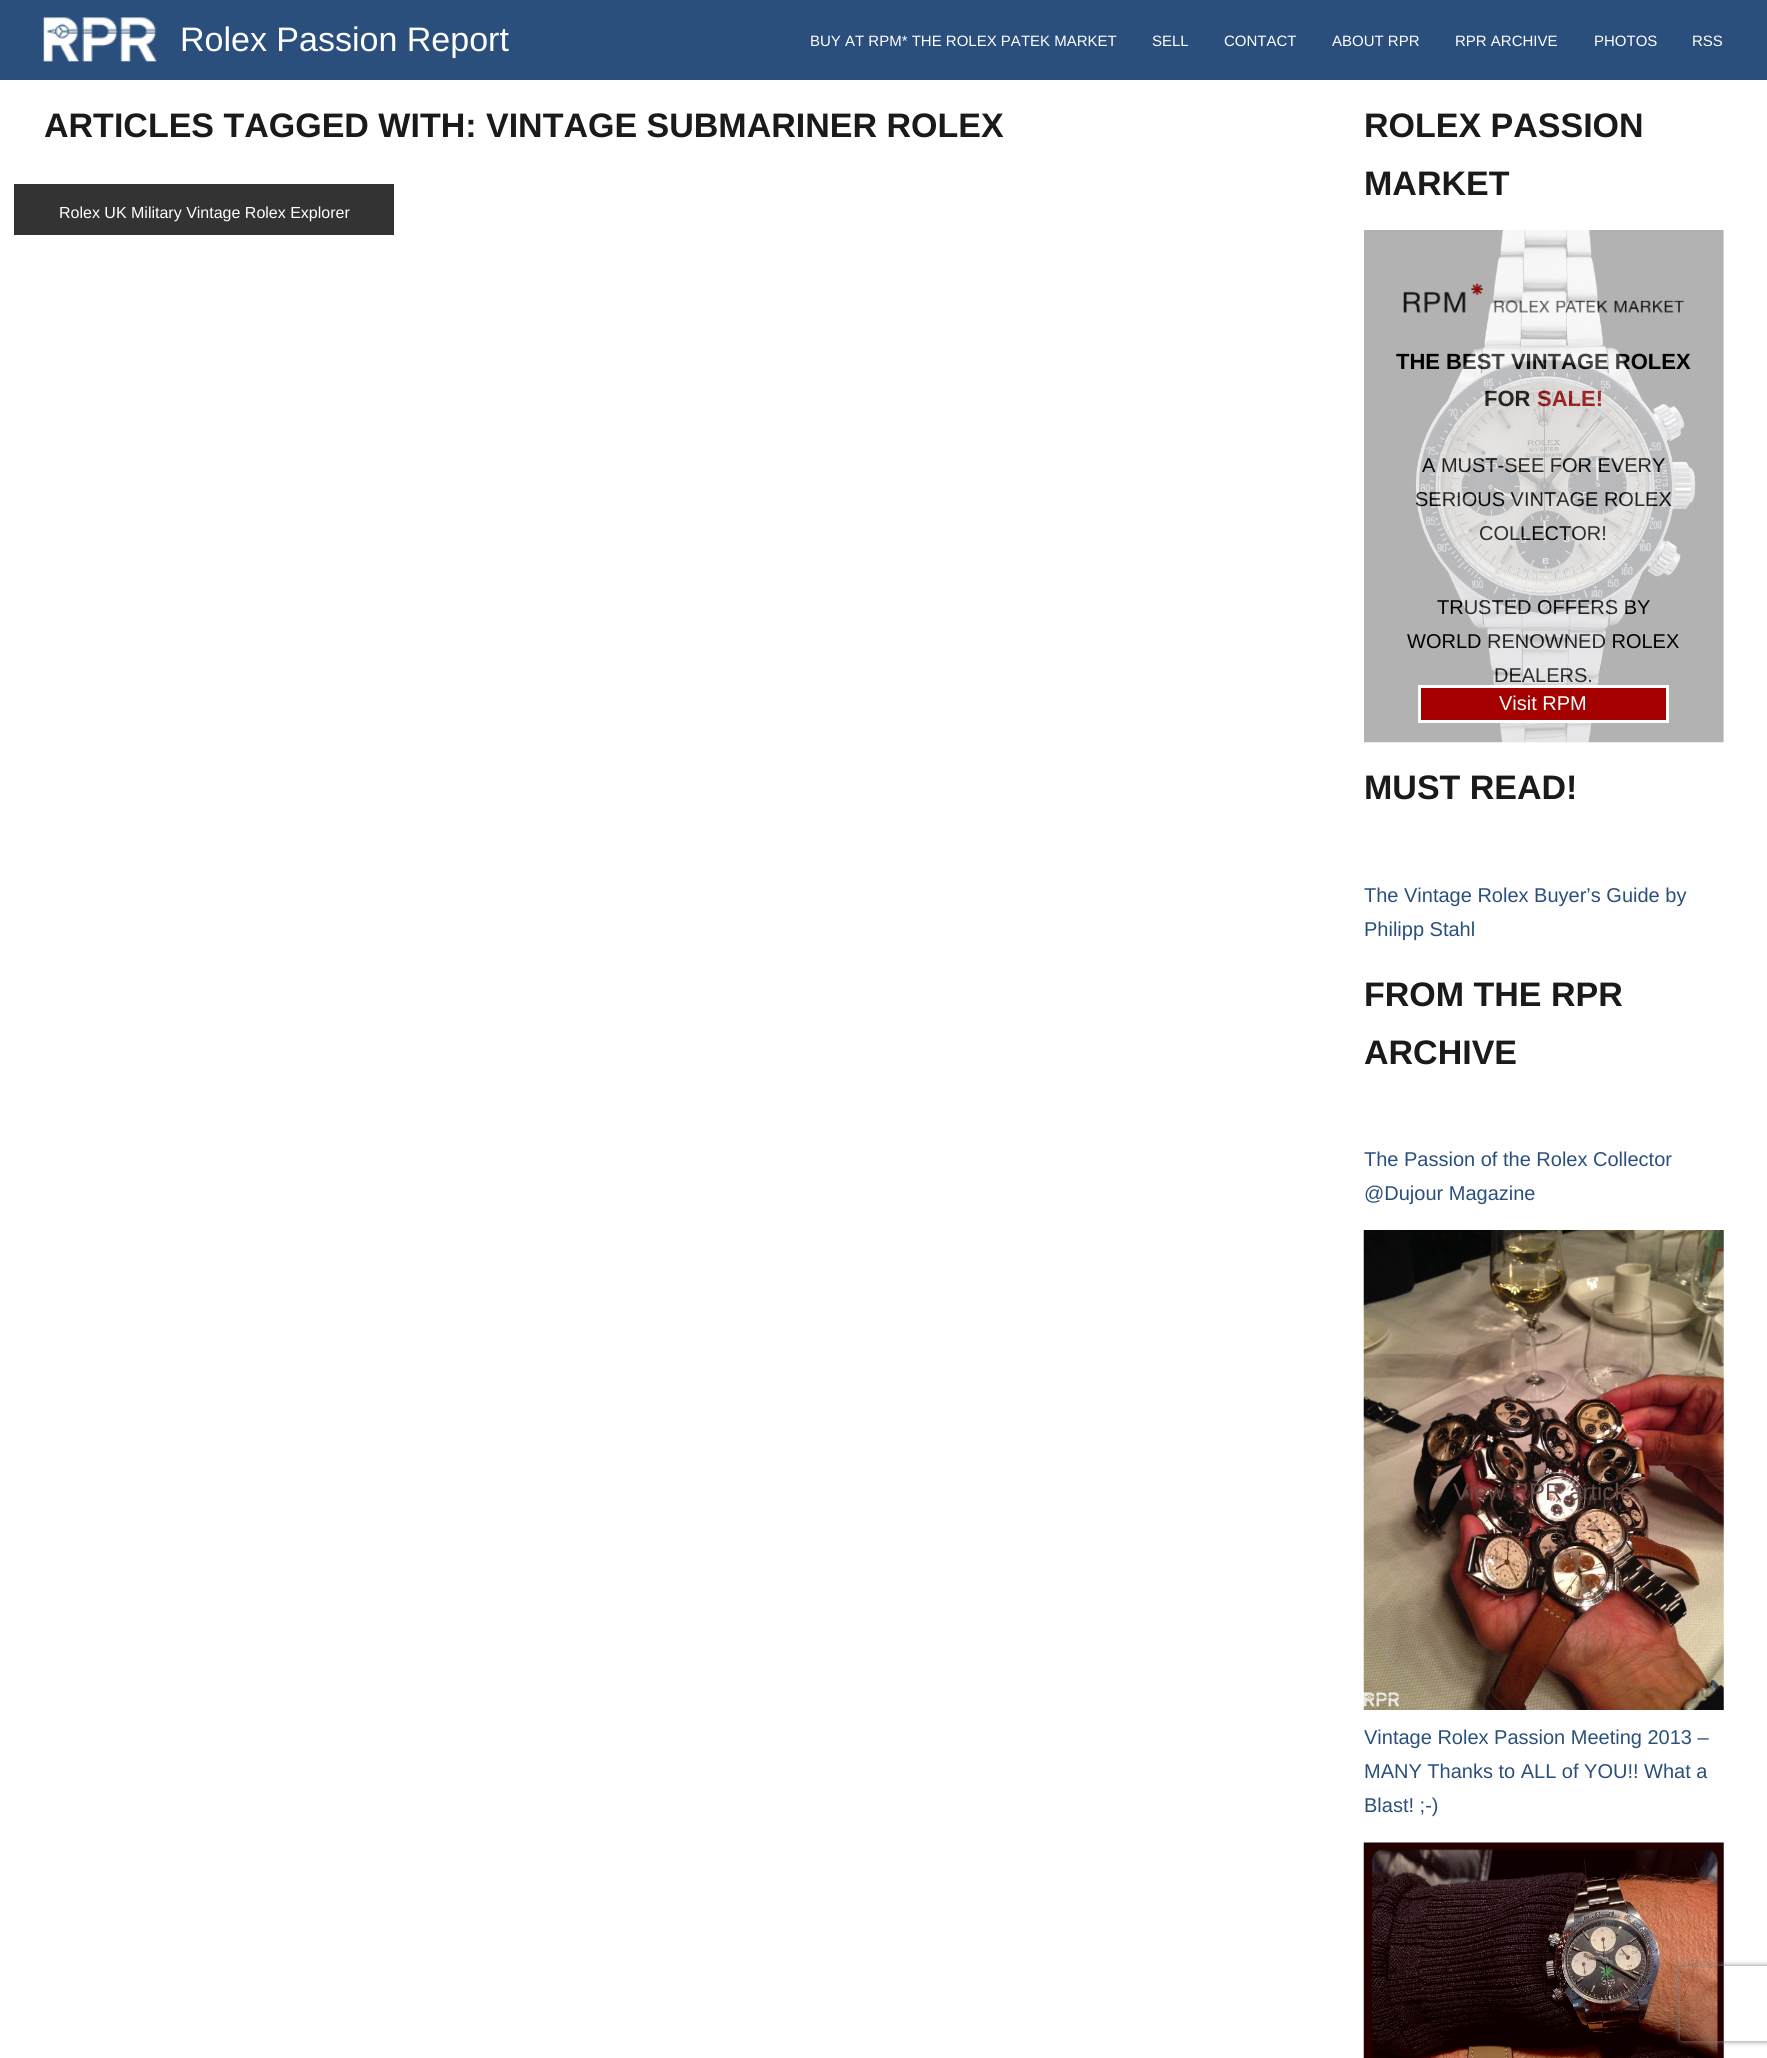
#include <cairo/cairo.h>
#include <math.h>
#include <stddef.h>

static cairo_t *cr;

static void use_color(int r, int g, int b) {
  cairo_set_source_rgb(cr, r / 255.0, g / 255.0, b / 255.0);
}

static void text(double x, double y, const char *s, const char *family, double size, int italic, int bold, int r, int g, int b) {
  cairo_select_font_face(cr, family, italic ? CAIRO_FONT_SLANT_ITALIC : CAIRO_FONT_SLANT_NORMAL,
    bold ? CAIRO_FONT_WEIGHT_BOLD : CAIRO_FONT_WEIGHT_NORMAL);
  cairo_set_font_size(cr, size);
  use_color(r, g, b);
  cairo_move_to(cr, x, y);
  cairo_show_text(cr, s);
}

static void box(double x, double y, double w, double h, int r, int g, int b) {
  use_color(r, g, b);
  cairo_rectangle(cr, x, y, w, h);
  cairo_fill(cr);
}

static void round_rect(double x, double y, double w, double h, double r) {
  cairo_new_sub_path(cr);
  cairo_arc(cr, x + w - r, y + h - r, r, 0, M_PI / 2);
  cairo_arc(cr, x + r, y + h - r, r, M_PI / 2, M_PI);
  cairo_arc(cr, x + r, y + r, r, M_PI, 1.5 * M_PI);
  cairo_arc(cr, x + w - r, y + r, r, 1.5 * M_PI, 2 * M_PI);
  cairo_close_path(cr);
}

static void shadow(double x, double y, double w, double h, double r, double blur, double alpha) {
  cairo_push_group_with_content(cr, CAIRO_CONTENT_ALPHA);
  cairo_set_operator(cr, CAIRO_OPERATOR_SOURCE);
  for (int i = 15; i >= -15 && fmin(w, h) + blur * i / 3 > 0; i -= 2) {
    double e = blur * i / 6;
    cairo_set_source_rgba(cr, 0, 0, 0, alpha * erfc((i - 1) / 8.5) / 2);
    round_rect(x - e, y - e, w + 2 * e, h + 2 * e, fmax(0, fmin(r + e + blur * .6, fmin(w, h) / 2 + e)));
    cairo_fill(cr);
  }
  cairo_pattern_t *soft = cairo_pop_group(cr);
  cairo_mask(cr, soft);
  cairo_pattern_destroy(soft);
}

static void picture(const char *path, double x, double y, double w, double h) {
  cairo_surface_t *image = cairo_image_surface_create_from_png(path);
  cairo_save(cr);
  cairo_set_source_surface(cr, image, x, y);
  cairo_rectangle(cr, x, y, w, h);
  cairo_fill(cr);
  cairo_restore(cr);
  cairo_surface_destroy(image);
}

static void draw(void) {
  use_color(255, 255, 255);
  cairo_paint(cr);
  box(0, 0, 1767, 80, 43, 79, 125);
  picture("img_01.png", 43, 17, 114, 45);
  box(14, 184, 380, 51, 51, 51, 51);
  picture("img_03.png", 1403, 283, 281, 30);
  picture("img_04.png", 1363, 1230, 361, 480);
  picture("img_05.png", 1363, 1842, 361, 216);
  cairo_save(cr);
  cairo_set_fill_rule(cr, CAIRO_FILL_RULE_EVEN_ODD);
  cairo_new_path(cr);
  cairo_move_to(cr, 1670, 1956);
  cairo_line_to(cr, 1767, 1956);
  cairo_line_to(cr, 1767, 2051);
  cairo_line_to(cr, 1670, 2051);
  cairo_close_path(cr);
  cairo_move_to(cr, 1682.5, 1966);
  cairo_line_to(cr, 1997.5, 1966);
  cairo_curve_to(cr, 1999, 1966, 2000, 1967, 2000, 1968.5);
  cairo_line_to(cr, 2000, 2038.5);
  cairo_curve_to(cr, 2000, 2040, 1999, 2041, 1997.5, 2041);
  cairo_line_to(cr, 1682.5, 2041);
  cairo_curve_to(cr, 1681, 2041, 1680, 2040, 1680, 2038.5);
  cairo_line_to(cr, 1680, 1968.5);
  cairo_curve_to(cr, 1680, 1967, 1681, 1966, 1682.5, 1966);
  cairo_close_path(cr);
  cairo_clip(cr);
  use_color(128, 128, 128);
  shadow(1680, 1966, 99, 75, 2.5, 3, 1);
  cairo_restore(cr);
  text(180, 51, "Rolex Passion Report", "Liberation Sans", 34, 0, 0, 255, 255, 255);
  text(810, 46, "BUY AT RPM* THE ROLEX PATEK MARKET", "Liberation Sans", 15, 0, 0, 255, 255, 255);
  text(1152, 46, "SELL", "Liberation Sans", 15, 0, 0, 255, 255, 255);
  text(1224, 46, "CONTACT", "Liberation Sans", 15, 0, 0, 255, 255, 255);
  text(1332, 46, "ABOUT RPR", "Liberation Sans", 15, 0, 0, 255, 255, 255);
  text(1455, 46, "RPR ARCHIVE", "Liberation Sans", 15, 0, 0, 255, 255, 255);
  text(1594, 46, "PHOTOS", "Liberation Sans", 15, 0, 0, 255, 255, 255);
  text(1692, 46, "RSS", "Liberation Sans", 15, 0, 0, 255, 255, 255);
  text(44, 137, "ARTICLES TAGGED WITH: VINTAGE SUBMARINER ROLEX", "Liberation Sans", 34, 0, 1, 26, 26, 26);
  text(59, 218, "Rolex UK Military Vintage Rolex Explorer", "Liberation Sans", 16, 0, 0, 255, 255, 255);
  text(1364, 137, "ROLEX PASSION", "Liberation Sans", 34, 0, 1, 26, 26, 26);
  text(1364, 195, "MARKET", "Liberation Sans", 34, 0, 1, 26, 26, 26);
  text(1396, 369, "THE BEST VINTAGE ROLEX", "Liberation Sans", 22, 0, 1, 0, 0, 0);
  text(1484, 406, "FOR", "Liberation Sans", 22, 0, 1, 0, 0, 0);
  text(1537, 406, "SALE!", "Liberation Sans", 22, 0, 1, 165, 0, 0);
  text(1422, 472, "A MUST-SEE FOR EVERY", "Liberation Sans", 20, 0, 0, 0, 0, 0);
  text(1415, 506, "SERIOUS VINTAGE ROLEX", "Liberation Sans", 20, 0, 0, 0, 0, 0);
  text(1479, 540, "COLLECTOR!", "Liberation Sans", 20, 0, 0, 0, 0, 0);
  text(1437, 614, "TRUSTED OFFERS BY", "Liberation Sans", 20, 0, 0, 0, 0, 0);
  text(1407, 648, "WORLD RENOWNED ROLEX", "Liberation Sans", 20, 0, 0, 0, 0, 0);
  text(1494, 682, "DEALERS.", "Liberation Sans", 20, 0, 0, 0, 0, 0);
  picture("img_02.png", 1364, 230, 360, 513);
  use_color(165, 0, 0);
  cairo_rectangle(cr, 1419.5, 686.5, 248, 35);
  cairo_fill_preserve(cr);
  use_color(255, 255, 255);
  cairo_set_line_width(cr, 3);
  cairo_stroke(cr);
  text(1499, 710, "Visit RPM", "Liberation Sans", 20, 0, 0, 255, 255, 255);
  text(1364, 799, "MUST READ!", "Liberation Sans", 34, 0, 1, 26, 26, 26);
  text(1364, 902, "The Vintage Rolex Buyer’s Guide by", "Liberation Sans", 20, 0, 0, 43, 79, 125);
  text(1364, 936, "Philipp Stahl", "Liberation Sans", 20, 0, 0, 43, 79, 125);
  text(1364, 1006, "FROM THE RPR", "Liberation Sans", 34, 0, 1, 26, 26, 26);
  text(1364, 1064, "ARCHIVE", "Liberation Sans", 34, 0, 1, 26, 26, 26);
  text(1364, 1166, "The Passion of the Rolex Collector", "Liberation Sans", 20, 0, 0, 43, 79, 125);
  text(1364, 1200, "@Dujour Magazine", "Liberation Sans", 20, 0, 0, 43, 79, 125);
  text(1453, 1500, "View RPR article", "Liberation Sans", 24, 0, 0, 101, 73, 69);
  text(1364, 1744, "Vintage Rolex Passion Meeting 2013 –", "Liberation Sans", 20, 0, 0, 43, 79, 125);
  text(1364, 1778, "MANY Thanks to ALL of YOU!! What a", "Liberation Sans", 20, 0, 0, 43, 79, 125);
  text(1364, 1812, "Blast! ;-)", "Liberation Sans", 20, 0, 0, 43, 79, 125);
}

int main(void) {
  cairo_surface_t *surface = cairo_image_surface_create(CAIRO_FORMAT_RGB24, 1767, 2058);
  cr = cairo_create(surface);
  cairo_font_options_t *options = cairo_font_options_create();
  cairo_font_options_set_hint_metrics(options, CAIRO_HINT_METRICS_OFF);
  cairo_font_options_set_hint_style(options, CAIRO_HINT_STYLE_NONE);
  cairo_set_font_options(cr, options);
  cairo_set_miter_limit(cr, 4);
  draw();
  cairo_surface_write_to_png(surface, "out.png");
  cairo_font_options_destroy(options);
  cairo_destroy(cr);
  cairo_surface_destroy(surface);
  return 0;
}
